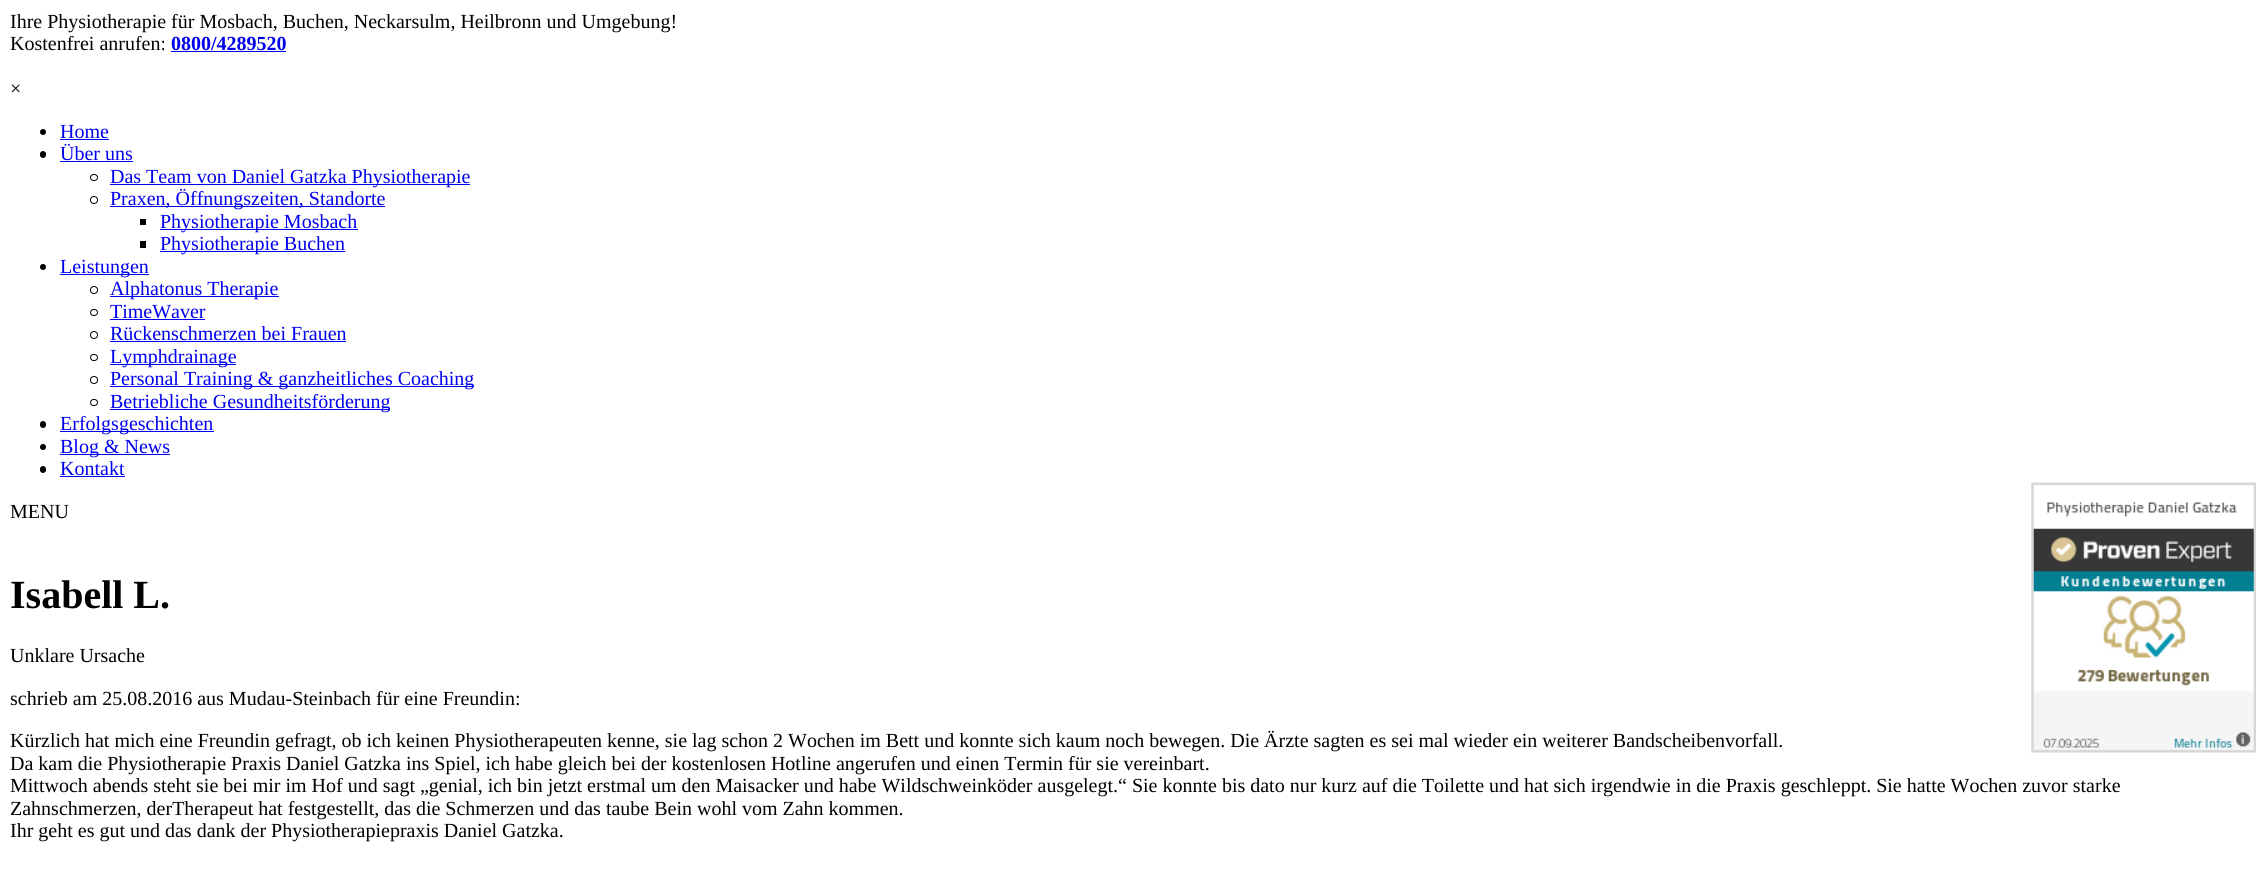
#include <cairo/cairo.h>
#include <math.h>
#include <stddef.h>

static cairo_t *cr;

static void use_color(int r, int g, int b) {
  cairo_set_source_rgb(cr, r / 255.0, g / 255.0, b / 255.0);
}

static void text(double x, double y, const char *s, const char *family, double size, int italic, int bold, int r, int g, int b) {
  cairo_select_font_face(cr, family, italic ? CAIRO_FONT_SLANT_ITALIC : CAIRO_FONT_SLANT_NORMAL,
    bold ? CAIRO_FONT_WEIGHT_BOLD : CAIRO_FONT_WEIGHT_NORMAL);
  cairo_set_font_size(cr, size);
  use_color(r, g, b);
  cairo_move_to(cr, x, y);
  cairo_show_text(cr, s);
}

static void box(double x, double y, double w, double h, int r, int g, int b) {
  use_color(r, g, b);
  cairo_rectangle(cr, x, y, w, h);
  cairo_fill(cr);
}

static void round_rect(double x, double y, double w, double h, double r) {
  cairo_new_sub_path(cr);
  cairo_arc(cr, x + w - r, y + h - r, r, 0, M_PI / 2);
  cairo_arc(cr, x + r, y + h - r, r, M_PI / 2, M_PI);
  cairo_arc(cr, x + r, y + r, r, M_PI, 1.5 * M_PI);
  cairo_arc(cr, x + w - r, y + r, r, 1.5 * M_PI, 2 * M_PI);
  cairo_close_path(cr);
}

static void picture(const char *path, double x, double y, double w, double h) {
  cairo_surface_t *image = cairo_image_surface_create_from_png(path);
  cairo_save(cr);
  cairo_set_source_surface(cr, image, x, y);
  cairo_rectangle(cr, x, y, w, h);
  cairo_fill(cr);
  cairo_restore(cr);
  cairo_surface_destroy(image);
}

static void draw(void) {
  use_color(255, 255, 255);
  cairo_paint(cr);
  box(171, 51, 115, 1, 0, 0, 238);
  use_color(0, 0, 0);
  cairo_arc(cr, 43, 132, 3, 0, 2 * M_PI);
  cairo_fill(cr);
  box(60, 139, 49, 1, 0, 0, 238);
  use_color(0, 0, 0);
  round_rect(40, 151, 6, 7, 3);
  cairo_fill(cr);
  box(60, 161, 73, 1, 0, 0, 238);
  round_rect(90.5, 174.5, 7, 6, 3);
  use_color(0, 0, 0);
  cairo_set_line_width(cr, 1);
  cairo_stroke(cr);
  box(110, 184, 360, 1, 0, 0, 238);
  cairo_arc(cr, 94, 200, 3.5, 0, 2 * M_PI);
  use_color(0, 0, 0);
  cairo_stroke(cr);
  box(110, 206, 275, 1, 0, 0, 238);
  box(140, 219, 6, 6, 0, 0, 0);
  box(160, 229, 198, 1, 0, 0, 238);
  box(140, 241, 6, 7, 0, 0, 0);
  box(160, 251, 185, 1, 0, 0, 238);
  use_color(0, 0, 0);
  cairo_arc(cr, 43, 267, 3, 0, 2 * M_PI);
  cairo_fill(cr);
  box(60, 274, 89, 1, 0, 0, 238);
  cairo_arc(cr, 94, 290, 3.5, 0, 2 * M_PI);
  use_color(0, 0, 0);
  cairo_stroke(cr);
  box(110, 296, 169, 1, 0, 0, 238);
  round_rect(90.5, 309.5, 7, 6, 3);
  use_color(0, 0, 0);
  cairo_stroke(cr);
  box(110, 319, 95, 1, 0, 0, 238);
  cairo_arc(cr, 94, 335, 3.5, 0, 2 * M_PI);
  use_color(0, 0, 0);
  cairo_stroke(cr);
  box(110, 341, 236, 1, 0, 0, 238);
  round_rect(90.5, 354.5, 7, 6, 3);
  use_color(0, 0, 0);
  cairo_stroke(cr);
  box(110, 364, 126, 1, 0, 0, 238);
  cairo_arc(cr, 94, 380, 3.5, 0, 2 * M_PI);
  use_color(0, 0, 0);
  cairo_stroke(cr);
  box(110, 386, 364, 1, 0, 0, 238);
  round_rect(90.5, 399.5, 7, 6, 3);
  use_color(0, 0, 0);
  cairo_stroke(cr);
  box(110, 409, 280, 1, 0, 0, 238);
  use_color(0, 0, 0);
  round_rect(40, 421, 6, 7, 3);
  cairo_fill(cr);
  box(60, 431, 154, 1, 0, 0, 238);
  use_color(0, 0, 0);
  cairo_arc(cr, 43, 447, 3, 0, 2 * M_PI);
  cairo_fill(cr);
  box(60, 454, 110, 1, 0, 0, 238);
  use_color(0, 0, 0);
  round_rect(40, 466, 6, 7, 3);
  cairo_fill(cr);
  box(60, 476, 65, 1, 0, 0, 238);
  picture("img_01.png", 2031, 482, 225, 271);
  text(10, 28, "Ihre Physiotherapie für Mosbach, Buchen, Neckarsulm, Heilbronn und Umgebung!", "Liberation Serif", 20, 0, 0, 0, 0, 0);
  text(10, 50, "Kostenfrei anrufen:", "Liberation Serif", 20, 0, 0, 0, 0, 0);
  text(171, 50, "0800/4289520", "Liberation Serif", 20, 0, 1, 0, 0, 238);
  text(10, 95, "×", "Liberation Serif", 20, 0, 0, 0, 0, 0);
  text(60, 138, "Home", "Liberation Serif", 20, 0, 0, 0, 0, 238);
  text(60, 160, "Über uns", "Liberation Serif", 20, 0, 0, 0, 0, 238);
  text(110, 183, "Das Team von Daniel Gatzka Physiotherapie", "Liberation Serif", 20, 0, 0, 0, 0, 238);
  text(110, 205, "Praxen, Öffnungszeiten, Standorte", "Liberation Serif", 20, 0, 0, 0, 0, 238);
  text(160, 228, "Physiotherapie Mosbach", "Liberation Serif", 20, 0, 0, 0, 0, 238);
  text(160, 250, "Physiotherapie Buchen", "Liberation Serif", 20, 0, 0, 0, 0, 238);
  text(60, 273, "Leistungen", "Liberation Serif", 20, 0, 0, 0, 0, 238);
  text(110, 295, "Alphatonus Therapie", "Liberation Serif", 20, 0, 0, 0, 0, 238);
  text(110, 318, "TimeWaver", "Liberation Serif", 20, 0, 0, 0, 0, 238);
  text(110, 340, "Rückenschmerzen bei Frauen", "Liberation Serif", 20, 0, 0, 0, 0, 238);
  text(110, 363, "Lymphdrainage", "Liberation Serif", 20, 0, 0, 0, 0, 238);
  text(110, 385, "Personal Training & ganzheitliches Coaching", "Liberation Serif", 20, 0, 0, 0, 0, 238);
  text(110, 408, "Betriebliche Gesundheitsförderung", "Liberation Serif", 20, 0, 0, 0, 0, 238);
  text(60, 430, "Erfolgsgeschichten", "Liberation Serif", 20, 0, 0, 0, 0, 238);
  text(60, 453, "Blog & News", "Liberation Serif", 20, 0, 0, 0, 0, 238);
  text(60, 475, "Kontakt", "Liberation Serif", 20, 0, 0, 0, 0, 238);
  text(10, 518, "MENU", "Liberation Serif", 20, 0, 0, 0, 0, 0);
  text(10, 608, "Isabell L.", "Liberation Serif", 40, 0, 1, 0, 0, 0);
  text(10, 662, "Unklare Ursache", "Liberation Serif", 20, 0, 0, 0, 0, 0);
  text(10, 705, "schrieb am 25.08.2016 aus Mudau-Steinbach für eine Freundin:", "Liberation Serif", 20, 0, 0, 0, 0, 0);
  text(10, 747, "Kürzlich hat mich eine Freundin gefragt, ob ich keinen Physiotherapeuten kenne, sie lag schon 2 Wochen im Bett und konnte sich kaum noch bewegen. Die Ärzte sagten es sei mal wieder ein weiterer Bandscheibenvorfall.", "Liberation Serif", 20, 0, 0, 0, 0, 0);
  text(10, 770, "Da kam die Physiotherapie Praxis Daniel Gatzka ins Spiel, ich habe gleich bei der kostenlosen Hotline angerufen und einen Termin für sie vereinbart.", "Liberation Serif", 20, 0, 0, 0, 0, 0);
  text(10, 792, "Mittwoch abends steht sie bei mir im Hof und sagt „genial, ich bin jetzt erstmal um den Maisacker und habe Wildschweinköder ausgelegt.“ Sie konnte bis dato nur kurz auf die Toilette und hat sich irgendwie in die Praxis geschleppt. Sie hatte Wochen zuvor starke", "Liberation Serif", 20, 0, 0, 0, 0, 0);
  text(10, 815, "Zahnschmerzen, derTherapeut hat festgestellt, das die Schmerzen und das taube Bein wohl vom Zahn kommen.", "Liberation Serif", 20, 0, 0, 0, 0, 0);
  text(10, 837, "Ihr geht es gut und das dank der Physiotherapiepraxis Daniel Gatzka.", "Liberation Serif", 20, 0, 0, 0, 0, 0);
}

int main(void) {
  cairo_surface_t *surface = cairo_image_surface_create(CAIRO_FORMAT_RGB24, 2256, 877);
  cr = cairo_create(surface);
  cairo_font_options_t *options = cairo_font_options_create();
  cairo_font_options_set_hint_metrics(options, CAIRO_HINT_METRICS_OFF);
  cairo_font_options_set_hint_style(options, CAIRO_HINT_STYLE_NONE);
  cairo_set_font_options(cr, options);
  cairo_set_miter_limit(cr, 4);
  draw();
  cairo_surface_write_to_png(surface, "out.png");
  cairo_font_options_destroy(options);
  cairo_destroy(cr);
  cairo_surface_destroy(surface);
  return 0;
}
